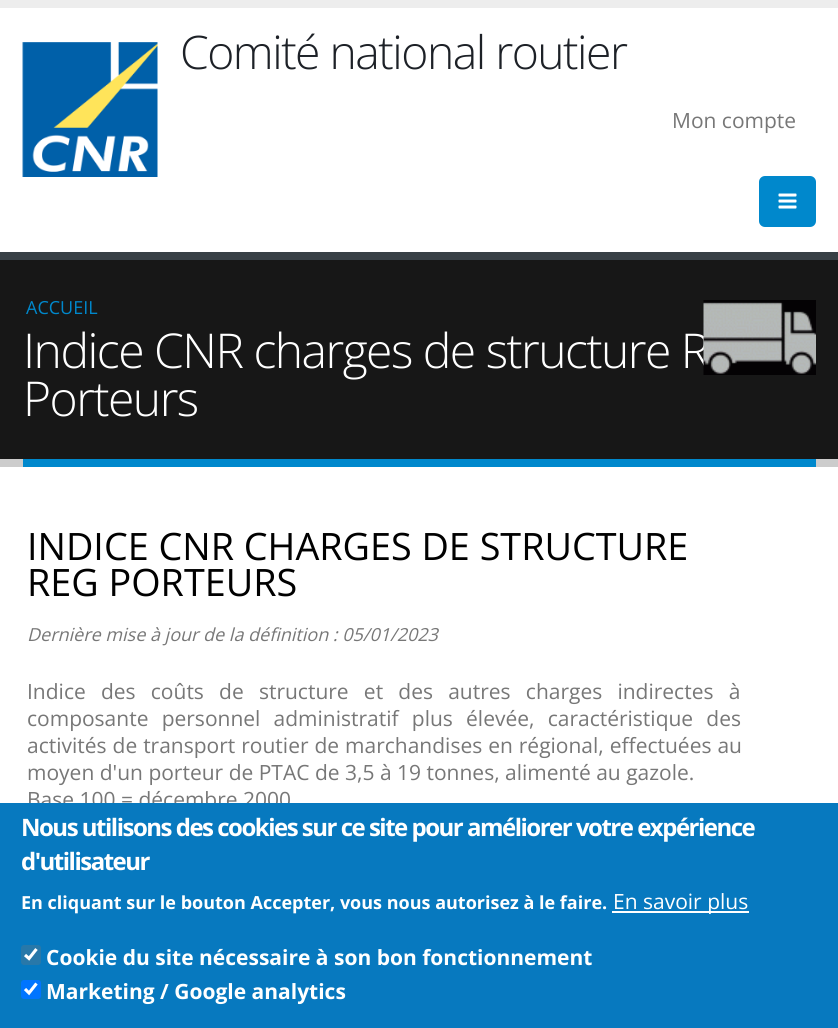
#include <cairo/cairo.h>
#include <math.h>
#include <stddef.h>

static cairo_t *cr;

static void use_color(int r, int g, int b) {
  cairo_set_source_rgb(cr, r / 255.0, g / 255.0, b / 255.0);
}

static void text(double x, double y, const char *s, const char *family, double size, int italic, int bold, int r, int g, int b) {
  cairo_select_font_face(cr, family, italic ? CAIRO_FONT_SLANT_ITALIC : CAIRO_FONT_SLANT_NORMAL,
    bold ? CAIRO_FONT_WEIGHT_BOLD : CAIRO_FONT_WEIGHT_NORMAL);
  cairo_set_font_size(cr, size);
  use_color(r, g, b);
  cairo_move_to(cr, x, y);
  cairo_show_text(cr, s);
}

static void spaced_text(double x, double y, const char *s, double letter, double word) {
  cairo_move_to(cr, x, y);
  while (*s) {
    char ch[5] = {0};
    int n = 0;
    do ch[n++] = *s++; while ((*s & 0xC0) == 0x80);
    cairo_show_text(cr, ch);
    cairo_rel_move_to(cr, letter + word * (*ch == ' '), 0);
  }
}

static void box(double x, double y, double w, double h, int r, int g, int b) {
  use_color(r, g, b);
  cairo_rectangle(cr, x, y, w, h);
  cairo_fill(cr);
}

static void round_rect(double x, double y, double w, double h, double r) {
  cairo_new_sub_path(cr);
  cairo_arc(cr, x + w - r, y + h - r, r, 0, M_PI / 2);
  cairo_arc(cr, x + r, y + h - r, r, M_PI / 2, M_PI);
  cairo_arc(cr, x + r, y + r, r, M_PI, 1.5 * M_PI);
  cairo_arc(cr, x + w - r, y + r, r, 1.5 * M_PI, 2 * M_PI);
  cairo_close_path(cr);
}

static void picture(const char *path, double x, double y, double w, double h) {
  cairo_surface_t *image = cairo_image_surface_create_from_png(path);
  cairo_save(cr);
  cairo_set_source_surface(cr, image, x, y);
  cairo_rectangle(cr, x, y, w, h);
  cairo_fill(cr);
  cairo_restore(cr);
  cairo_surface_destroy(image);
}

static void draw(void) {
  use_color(255, 255, 255);
  cairo_paint(cr);
  box(0, 0, 838, 8, 237, 237, 237);
  picture("img_01.png", 22, 42, 136, 135);
  use_color(0, 136, 204);
  round_rect(759, 176, 57, 51, 6);
  cairo_fill(cr);
  picture("img_02.png", 778, 193, 19, 16);
  box(0, 260, 838, 199, 23, 23, 23);
  box(0, 252, 838, 8, 56, 64, 69);
  box(0, 459, 838, 8, 204, 204, 204);
  box(23, 459, 793, 8, 0, 136, 204);
  cairo_select_font_face(cr, "Open Sans Light", CAIRO_FONT_SLANT_NORMAL, CAIRO_FONT_WEIGHT_NORMAL);
  cairo_set_font_size(cr, 46.25);
  use_color(29, 33, 39);
  spaced_text(180, 69, "Comité national routier", -1.5, 0);
  text(672, 128, "Mon compte", "Open Sans", 21, 0, 0, 119, 119, 119);
  text(26, 314, "ACCUEIL", "Open Sans", 18, 0, 0, 0, 136, 204);
  cairo_select_font_face(cr, "Open Sans Light", CAIRO_FONT_SLANT_NORMAL, CAIRO_FONT_WEIGHT_NORMAL);
  cairo_set_font_size(cr, 48);
  use_color(255, 255, 255);
  spaced_text(23, 368, "Indice CNR charges de structure R", -1.5, 0);
  picture("img_03.png", 703, 300, 113, 75);
  spaced_text(23, 416, "Porteurs", -1.5, 0);
  text(27, 560, "INDICE CNR CHARGES DE STRUCTURE", "Open Sans", 37.75, 0, 0, 0, 0, 0);
  text(27, 596, "REG PORTEURS", "Open Sans", 37.75, 0, 0, 0, 0, 0);
  text(27, 641, "Dernière mise à jour de la définition : 05/01/2023", "Open Sans", 18, 1, 0, 119, 119, 119);
  cairo_select_font_face(cr, "Open Sans", CAIRO_FONT_SLANT_NORMAL, CAIRO_FONT_WEIGHT_NORMAL);
  cairo_set_font_size(cr, 21);
  spaced_text(27, 699, "Indice des coûts de structure et des autres charges indirectes à", 0, 9.75);
  spaced_text(27, 726, "composante personnel administratif plus élevée, caractéristique des", 0, 7.75);
  spaced_text(27, 753, "activités de transport routier de marchandises en régional, effectuées au", 0, 0.5);
  text(27, 780, "moyen d'un porteur de PTAC de 3,5 à 19 tonnes, alimenté au gazole.", "Open Sans", 21, 0, 0, 119, 119, 119);
  text(27, 807, "Base 100 = décembre 2000", "Open Sans", 21, 0, 0, 119, 119, 119);
  box(0, 803, 838, 225, 7, 121, 191);
  cairo_select_font_face(cr, "Open Sans", CAIRO_FONT_SLANT_NORMAL, CAIRO_FONT_WEIGHT_BOLD);
  cairo_set_font_size(cr, 24);
  use_color(255, 255, 255);
  spaced_text(21, 836, "Nous utilisons des cookies sur ce site pour améliorer votre expérience", -1.5, 0);
  spaced_text(21, 870, "d'utilisateur", -1.5, 0);
  text(21, 909, "En cliquant sur le bouton Accepter, vous nous autorisez à le faire.", "Open Sans", 18, 0, 1, 255, 255, 255);
  box(612, 911, 137, 2, 255, 255, 255);
  text(613, 909, "En savoir plus", "Open Sans", 21, 0, 0, 255, 255, 255);
  use_color(40, 120, 169);
  round_rect(21, 945, 20, 20, 3);
  cairo_fill(cr);
  cairo_new_path(cr);
  cairo_move_to(cr, 25, 955);
  cairo_line_to(cr, 29, 958.5);
  cairo_line_to(cr, 36.5, 949);
  use_color(255, 255, 255);
  cairo_set_line_width(cr, 3.1);
  cairo_stroke(cr);
  text(46, 965, "Cookie du site nécessaire à son bon fonctionnement", "Open Sans", 21, 0, 1, 255, 255, 255);
  use_color(0, 117, 255);
  round_rect(21, 980, 20, 19, 3);
  cairo_fill(cr);
  cairo_new_path(cr);
  cairo_move_to(cr, 25, 989);
  cairo_line_to(cr, 29, 993);
  cairo_line_to(cr, 36.5, 983.5);
  use_color(255, 255, 255);
  cairo_stroke(cr);
  text(46, 999, "Marketing / Google analytics", "Open Sans", 21, 0, 1, 255, 255, 255);
}

int main(void) {
  cairo_surface_t *surface = cairo_image_surface_create(CAIRO_FORMAT_RGB24, 838, 1028);
  cr = cairo_create(surface);
  cairo_font_options_t *options = cairo_font_options_create();
  cairo_font_options_set_hint_metrics(options, CAIRO_HINT_METRICS_OFF);
  cairo_font_options_set_hint_style(options, CAIRO_HINT_STYLE_NONE);
  cairo_set_font_options(cr, options);
  cairo_set_miter_limit(cr, 4);
  draw();
  cairo_surface_write_to_png(surface, "out.png");
  cairo_font_options_destroy(options);
  cairo_destroy(cr);
  cairo_surface_destroy(surface);
  return 0;
}
